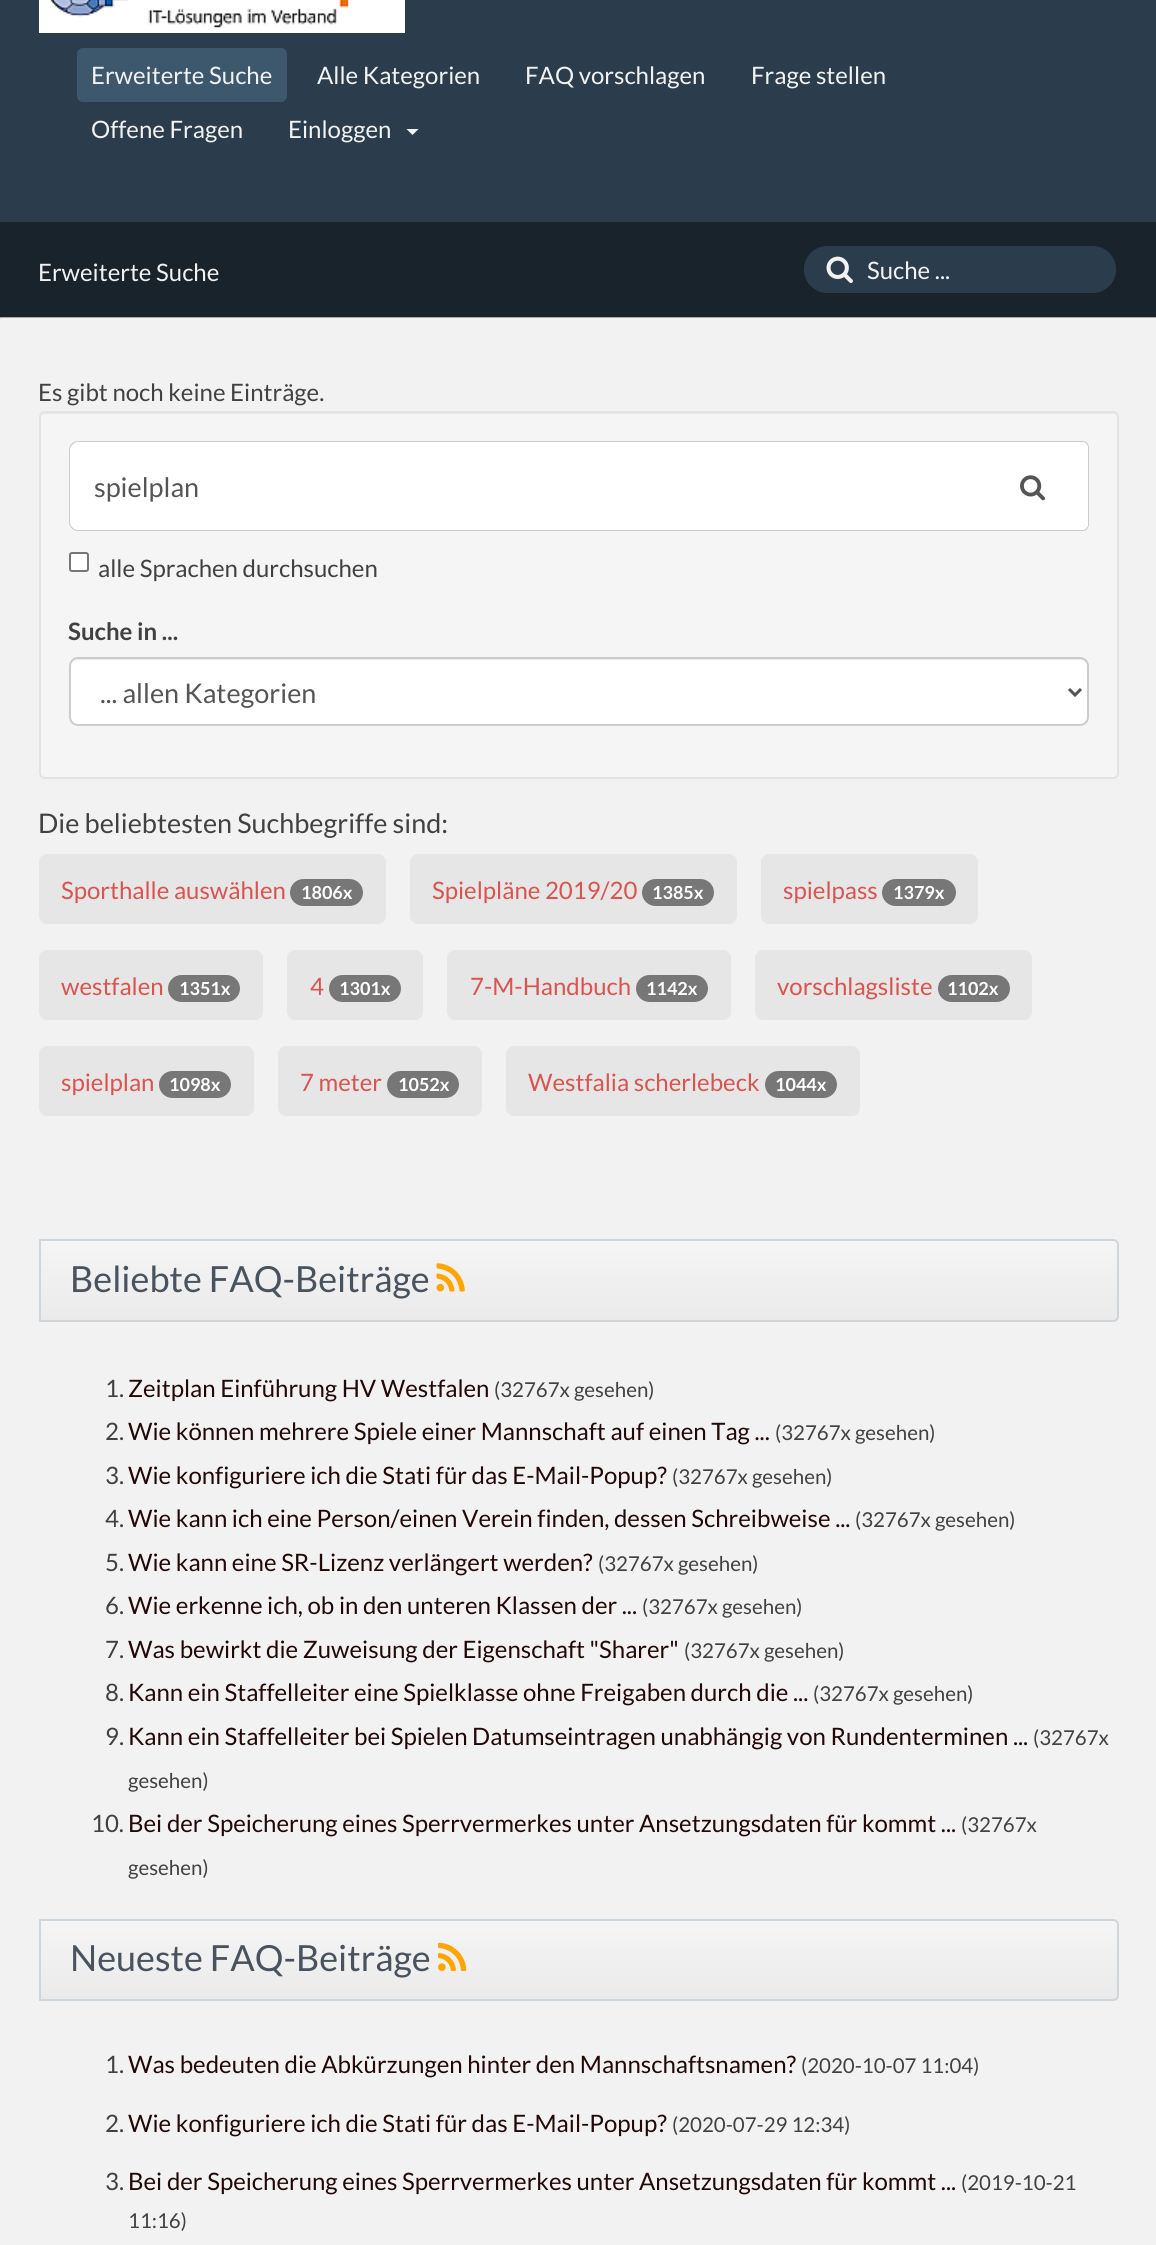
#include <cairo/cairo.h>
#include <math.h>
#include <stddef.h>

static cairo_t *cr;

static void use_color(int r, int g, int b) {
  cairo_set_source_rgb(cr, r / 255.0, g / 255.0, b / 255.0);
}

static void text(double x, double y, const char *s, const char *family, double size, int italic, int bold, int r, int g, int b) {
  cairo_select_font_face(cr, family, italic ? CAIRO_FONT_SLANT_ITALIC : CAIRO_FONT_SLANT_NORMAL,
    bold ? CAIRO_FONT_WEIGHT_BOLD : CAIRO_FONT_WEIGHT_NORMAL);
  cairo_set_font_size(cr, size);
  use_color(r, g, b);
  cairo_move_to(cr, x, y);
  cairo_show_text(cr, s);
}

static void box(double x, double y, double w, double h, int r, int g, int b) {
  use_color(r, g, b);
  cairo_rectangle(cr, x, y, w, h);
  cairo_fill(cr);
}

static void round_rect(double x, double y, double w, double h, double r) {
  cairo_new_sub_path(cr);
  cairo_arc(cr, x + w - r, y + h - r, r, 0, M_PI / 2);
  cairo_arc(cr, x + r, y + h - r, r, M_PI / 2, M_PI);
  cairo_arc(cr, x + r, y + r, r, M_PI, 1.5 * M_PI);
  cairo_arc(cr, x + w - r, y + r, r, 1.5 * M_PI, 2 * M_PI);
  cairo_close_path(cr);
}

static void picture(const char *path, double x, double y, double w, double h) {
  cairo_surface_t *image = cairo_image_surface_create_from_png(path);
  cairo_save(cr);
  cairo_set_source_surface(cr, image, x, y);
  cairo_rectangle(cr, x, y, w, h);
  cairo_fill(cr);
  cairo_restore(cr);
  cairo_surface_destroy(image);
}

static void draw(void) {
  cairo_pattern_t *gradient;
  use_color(242, 242, 242);
  cairo_paint(cr);
  box(0, 0, 1156, 222, 43, 61, 76);
  picture("img_01.png", 39, 0, 366, 33);
  use_color(61, 87, 109);
  round_rect(77, 48, 210, 54, 6);
  cairo_fill(cr);
  use_color(242, 242, 242);
  cairo_new_path(cr);
  cairo_move_to(cr, 406.5, 129);
  cairo_line_to(cr, 418.5, 129);
  cairo_line_to(cr, 412.5, 135);
  cairo_close_path(cr);
  cairo_fill(cr);
  box(0, 222, 1156, 95, 25, 35, 43);
  use_color(43, 61, 76);
  cairo_new_path(cr);
  cairo_move_to(cr, 827, 246);
  cairo_line_to(cr, 860, 246);
  cairo_line_to(cr, 860, 293);
  cairo_line_to(cr, 827, 293);
  cairo_curve_to(cr, 814.5, 293, 804, 282.5, 804, 270);
  cairo_line_to(cr, 804, 269);
  cairo_curve_to(cr, 804, 256.5, 814.5, 246, 827, 246);
  cairo_close_path(cr);
  cairo_fill(cr);
  picture("img_02.png", 826, 256, 27, 27);
  cairo_new_path(cr);
  cairo_move_to(cr, 858, 246);
  cairo_line_to(cr, 1093, 246);
  cairo_curve_to(cr, 1105.5, 246, 1116, 256.5, 1116, 269);
  cairo_line_to(cr, 1116, 270);
  cairo_curve_to(cr, 1116, 282.5, 1105.5, 293, 1093, 293);
  cairo_line_to(cr, 858, 293);
  cairo_close_path(cr);
  cairo_fill(cr);
  cairo_save(cr);
  cairo_rectangle(cr, 0, 317, 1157, 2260);
  cairo_clip(cr);
  use_color(171, 171, 171);
  cairo_set_fill_rule(cr, CAIRO_FILL_RULE_EVEN_ODD);
  cairo_new_path(cr);
  cairo_move_to(cr, -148, 168);
  cairo_line_to(cr, 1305, 168);
  cairo_line_to(cr, 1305, 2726);
  cairo_line_to(cr, -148, 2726);
  cairo_close_path(cr);
  cairo_move_to(cr, 2, 318);
  cairo_line_to(cr, 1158, 318);
  cairo_curve_to(cr, 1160, 318, 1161, 319, 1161, 321);
  cairo_line_to(cr, 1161, 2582);
  cairo_curve_to(cr, 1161, 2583, 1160, 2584, 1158, 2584);
  cairo_line_to(cr, 2, 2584);
  cairo_curve_to(cr, 0, 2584, -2, 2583, -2, 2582);
  cairo_line_to(cr, -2, 321);
  cairo_curve_to(cr, -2, 319, 0, 318, 2, 318);
  cairo_close_path(cr);
  cairo_fill(cr);
  cairo_restore(cr);
  use_color(245, 245, 245);
  round_rect(39, 411, 1080, 368, 6);
  cairo_fill(cr);
  use_color(233, 233, 233);
  cairo_new_path(cr);
  cairo_move_to(cr, 45, 414);
  cairo_line_to(cr, 1113, 414);
  cairo_curve_to(cr, 1115, 414, 1118, 416, 1118, 418);
  cairo_curve_to(cr, 1118, 415, 1116, 413, 1113, 413);
  cairo_line_to(cr, 46, 413);
  cairo_curve_to(cr, 44, 413, 43, 414, 42, 415);
  cairo_close_path(cr);
  cairo_fill(cr);
  round_rect(40, 412, 1078, 366, 5);
  use_color(227, 227, 227);
  cairo_stroke(cr);
  use_color(255, 255, 255);
  cairo_new_path(cr);
  cairo_move_to(cr, 78, 441);
  cairo_line_to(cr, 978, 441);
  cairo_line_to(cr, 978, 531);
  cairo_line_to(cr, 78, 531);
  cairo_curve_to(cr, 73, 531, 69, 527, 69, 522);
  cairo_line_to(cr, 69, 450);
  cairo_curve_to(cr, 69, 445, 73, 441, 78, 441);
  cairo_close_path(cr);
  cairo_fill(cr);
  use_color(204, 204, 204);
  cairo_set_fill_rule(cr, CAIRO_FILL_RULE_EVEN_ODD);
  cairo_new_path(cr);
  cairo_move_to(cr, 78, 441);
  cairo_line_to(cr, 978, 441);
  cairo_line_to(cr, 978, 531);
  cairo_line_to(cr, 78, 531);
  cairo_curve_to(cr, 73, 531, 69, 527, 69, 522);
  cairo_line_to(cr, 69, 450);
  cairo_curve_to(cr, 69, 445, 73, 441, 78, 441);
  cairo_close_path(cr);
  cairo_move_to(cr, 78, 442);
  cairo_line_to(cr, 978, 442);
  cairo_line_to(cr, 978, 530);
  cairo_line_to(cr, 78, 530);
  cairo_curve_to(cr, 74, 530, 70, 526, 70, 522);
  cairo_line_to(cr, 70, 450);
  cairo_curve_to(cr, 70, 446, 74, 442, 78, 442);
  cairo_close_path(cr);
  cairo_fill(cr);
  use_color(255, 255, 255);
  cairo_new_path(cr);
  cairo_move_to(cr, 978, 441);
  cairo_line_to(cr, 1083, 441);
  cairo_curve_to(cr, 1086.5, 441, 1089, 443.5, 1089, 447);
  cairo_line_to(cr, 1089, 525);
  cairo_curve_to(cr, 1089, 528.5, 1086.5, 531, 1083, 531);
  cairo_line_to(cr, 978, 531);
  cairo_close_path(cr);
  cairo_fill(cr);
  use_color(204, 204, 204);
  cairo_new_path(cr);
  cairo_move_to(cr, 978, 441);
  cairo_line_to(cr, 1083, 441);
  cairo_curve_to(cr, 1086, 441, 1089, 444, 1089, 447);
  cairo_line_to(cr, 1089, 525);
  cairo_curve_to(cr, 1089, 528, 1086, 531, 1083, 531);
  cairo_line_to(cr, 978, 531);
  cairo_close_path(cr);
  cairo_move_to(cr, 978, 442);
  cairo_line_to(cr, 1083, 442);
  cairo_curve_to(cr, 1085, 442, 1088, 445, 1088, 447);
  cairo_line_to(cr, 1088, 525);
  cairo_curve_to(cr, 1088, 527, 1085, 530, 1083, 530);
  cairo_line_to(cr, 978, 530);
  cairo_close_path(cr);
  cairo_fill(cr);
  picture("img_03.png", 1020, 475, 25, 26);
  use_color(255, 255, 255);
  round_rect(70, 553, 18, 18, 2);
  cairo_fill_preserve(cr);
  use_color(118, 118, 118);
  cairo_stroke(cr);
  use_color(255, 255, 255);
  round_rect(69, 657, 1020, 69, 9);
  cairo_fill(cr);
  use_color(236, 236, 236);
  cairo_set_fill_rule(cr, CAIRO_FILL_RULE_WINDING);
  cairo_new_path(cr);
  cairo_move_to(cr, 78, 660);
  cairo_line_to(cr, 1080, 660);
  cairo_curve_to(cr, 1084, 660, 1088, 663, 1088, 668);
  cairo_line_to(cr, 1088, 667);
  cairo_curve_to(cr, 1088, 663, 1084, 659, 1080, 659);
  cairo_line_to(cr, 79, 659);
  cairo_curve_to(cr, 77, 659, 74, 660, 73, 662);
  cairo_curve_to(cr, 74, 661, 76, 660, 78, 660);
  cairo_close_path(cr);
  cairo_fill(cr);
  round_rect(70, 658, 1018, 67, 8);
  use_color(204, 204, 204);
  cairo_stroke(cr);
  cairo_new_path(cr);
  cairo_move_to(cr, 1069, 689);
  cairo_line_to(cr, 1075, 695);
  cairo_line_to(cr, 1081, 689);
  use_color(85, 85, 85);
  cairo_set_line_width(cr, 3);
  cairo_stroke(cr);
  use_color(230, 230, 230);
  round_rect(39, 854, 347, 70, 8);
  cairo_fill(cr);
  use_color(119, 119, 119);
  round_rect(290, 879, 73, 27, 13.5);
  cairo_fill(cr);
  use_color(230, 230, 230);
  round_rect(410, 854, 327, 70, 8);
  cairo_fill(cr);
  use_color(119, 119, 119);
  round_rect(642, 879, 72, 27, 13.5);
  cairo_fill(cr);
  use_color(230, 230, 230);
  round_rect(761, 854, 217, 70, 8);
  cairo_fill(cr);
  use_color(119, 119, 119);
  round_rect(882, 879, 74, 27, 13.5);
  cairo_fill(cr);
  use_color(230, 230, 230);
  round_rect(39, 950, 224, 70, 8);
  cairo_fill(cr);
  use_color(119, 119, 119);
  round_rect(168, 975, 72, 27, 13.5);
  cairo_fill(cr);
  use_color(230, 230, 230);
  round_rect(287, 950, 136, 70, 8);
  cairo_fill(cr);
  use_color(119, 119, 119);
  round_rect(329, 975, 72, 27, 13.5);
  cairo_fill(cr);
  use_color(230, 230, 230);
  round_rect(447, 950, 284, 70, 8);
  cairo_fill(cr);
  use_color(119, 119, 119);
  round_rect(636, 975, 72, 27, 13.5);
  cairo_fill(cr);
  use_color(230, 230, 230);
  round_rect(755, 950, 277, 70, 8);
  cairo_fill(cr);
  use_color(119, 119, 119);
  round_rect(938, 975, 72, 27, 13.5);
  cairo_fill(cr);
  use_color(230, 230, 230);
  round_rect(39, 1046, 215, 70, 8);
  cairo_fill(cr);
  use_color(119, 119, 119);
  round_rect(159, 1071, 72, 27, 13.5);
  cairo_fill(cr);
  use_color(230, 230, 230);
  round_rect(278, 1046, 204, 70, 8);
  cairo_fill(cr);
  use_color(119, 119, 119);
  round_rect(387, 1071, 72, 27, 13.5);
  cairo_fill(cr);
  use_color(230, 230, 230);
  round_rect(506, 1046, 354, 70, 8);
  cairo_fill(cr);
  use_color(119, 119, 119);
  round_rect(765, 1071, 72, 27, 13.5);
  cairo_fill(cr);
  cairo_save(cr);
  cairo_new_path(cr);
  cairo_move_to(cr, 39, 1239);
  cairo_line_to(cr, 1113, 1239);
  cairo_curve_to(cr, 1116.5, 1239, 1119, 1241.5, 1119, 1245);
  cairo_line_to(cr, 1119, 1316);
  cairo_curve_to(cr, 1119, 1319.5, 1116.5, 1322, 1113, 1322);
  cairo_line_to(cr, 39, 1322);
  cairo_close_path(cr);
  cairo_clip(cr);
  gradient = cairo_pattern_create_linear(579, 1241, 579, 1320);
  cairo_pattern_add_color_stop_rgba(gradient, 0, 0.965, 0.961, 0.961, 1);
  cairo_pattern_add_color_stop_rgba(gradient, 1, 0.922, 0.918, 0.918, 1);
  cairo_set_source(cr, gradient);
  cairo_pattern_destroy(gradient);
  cairo_rectangle(cr, 41, 1241, 1078, 79);
  cairo_fill(cr);
  cairo_restore(cr);
  cairo_new_path(cr);
  cairo_move_to(cr, 40, 1240);
  cairo_line_to(cr, 1113, 1240);
  cairo_curve_to(cr, 1116, 1240, 1118, 1242, 1118, 1245);
  cairo_line_to(cr, 1118, 1316);
  cairo_curve_to(cr, 1118, 1319, 1116, 1321, 1113, 1321);
  cairo_line_to(cr, 40, 1321);
  cairo_close_path(cr);
  use_color(206, 213, 219);
  cairo_set_line_width(cr, 2);
  cairo_stroke(cr);
  picture("img_04.png", 436, 1263, 29, 29);
  cairo_save(cr);
  cairo_new_path(cr);
  cairo_move_to(cr, 39, 1919);
  cairo_line_to(cr, 1113, 1919);
  cairo_curve_to(cr, 1116.5, 1919, 1119, 1921.5, 1119, 1925);
  cairo_line_to(cr, 1119, 1995);
  cairo_curve_to(cr, 1119, 1998.5, 1116.5, 2001, 1113, 2001);
  cairo_line_to(cr, 39, 2001);
  cairo_close_path(cr);
  cairo_clip(cr);
  gradient = cairo_pattern_create_linear(579, 1920, 579, 2000);
  cairo_pattern_add_color_stop_rgba(gradient, 0, 0.965, 0.961, 0.961, 1);
  cairo_pattern_add_color_stop_rgba(gradient, 1, 0.922, 0.918, 0.918, 1);
  cairo_set_source(cr, gradient);
  cairo_pattern_destroy(gradient);
  cairo_rectangle(cr, 41, 1920, 1078, 80);
  cairo_fill(cr);
  cairo_restore(cr);
  cairo_new_path(cr);
  cairo_move_to(cr, 40, 1920);
  cairo_line_to(cr, 1113, 1920);
  cairo_curve_to(cr, 1116, 1920, 1118, 1922, 1118, 1925);
  cairo_line_to(cr, 1118, 1995);
  cairo_curve_to(cr, 1118, 1998, 1116, 2000, 1113, 2000);
  cairo_line_to(cr, 40, 2000);
  cairo_close_path(cr);
  cairo_stroke(cr);
  picture("img_05.png", 438, 1942, 29, 29);
  text(91, 84, "Erweiterte Suche", "Lato", 24, 0, 0, 242, 242, 242);
  text(317, 84, "Alle Kategorien", "Lato", 24, 0, 0, 242, 242, 242);
  text(525, 84, "FAQ vorschlagen", "Lato", 24, 0, 0, 242, 242, 242);
  text(751, 84, "Frage stellen", "Lato", 24, 0, 0, 242, 242, 242);
  text(91, 138, "Offene Fragen", "Lato", 24, 0, 0, 242, 242, 242);
  text(288, 138, "Einloggen", "Lato", 24, 0, 0, 242, 242, 242);
  text(38, 281, "Erweiterte Suche", "Lato", 24, 0, 0, 242, 242, 242);
  text(867, 279, "Suche ...", "Lato", 24, 0, 0, 242, 242, 242);
  text(38, 401, "Es gibt noch keine Einträge.", "Lato", 24, 0, 0, 66, 65, 66);
  text(94, 497, "spielplan", "Lato", 27, 0, 0, 85, 85, 85);
  text(98, 577, "alle Sprachen durchsuchen", "Lato", 24, 0, 0, 66, 65, 66);
  text(68, 640, "Suche in ...", "Lato", 24, 0, 1, 66, 65, 66);
  text(100, 703, "... allen Kategorien", "Lato", 27, 0, 0, 85, 85, 85);
  text(38, 833, "Die beliebtesten Suchbegriffe sind:", "Lato", 27, 0, 0, 66, 65, 66);
  text(61, 899, "Sporthalle auswählen", "Lato", 24, 0, 0, 217, 83, 79);
  text(301, 899, "1806x", "Lato", 18, 0, 1, 255, 255, 255);
  text(432, 899, "Spielpläne 2019/20", "Lato", 24, 0, 0, 217, 83, 79);
  text(652, 899, "1385x", "Lato", 18, 0, 1, 255, 255, 255);
  text(783, 899, "spielpass", "Lato", 24, 0, 0, 217, 83, 79);
  text(893, 899, "1379x", "Lato", 18, 0, 1, 255, 255, 255);
  text(61, 995, "westfalen", "Lato", 24, 0, 0, 217, 83, 79);
  text(179, 995, "1351x", "Lato", 18, 0, 1, 255, 255, 255);
  text(310, 995, "4", "Lato", 24, 0, 0, 217, 83, 79);
  text(339, 995, "1301x", "Lato", 18, 0, 1, 255, 255, 255);
  text(470, 995, "7-M-Handbuch", "Lato", 24, 0, 0, 217, 83, 79);
  text(646, 995, "1142x", "Lato", 18, 0, 1, 255, 255, 255);
  text(777, 995, "vorschlagsliste", "Lato", 24, 0, 0, 217, 83, 79);
  text(947, 995, "1102x", "Lato", 18, 0, 1, 255, 255, 255);
  text(61, 1091, "spielplan", "Lato", 24, 0, 0, 217, 83, 79);
  text(169, 1091, "1098x", "Lato", 18, 0, 1, 255, 255, 255);
  text(300, 1091, "7 meter", "Lato", 24, 0, 0, 217, 83, 79);
  text(398, 1091, "1052x", "Lato", 18, 0, 1, 255, 255, 255);
  text(528, 1091, "Westfalia scherlebeck", "Lato", 24, 0, 0, 217, 83, 79);
  text(775, 1091, "1044x", "Lato", 18, 0, 1, 255, 255, 255);
  text(70, 1292, "Beliebte FAQ-Beiträge", "Lato", 36, 0, 0, 72, 83, 95);
  text(105, 1397, "1.", "Lato", 24, 0, 0, 66, 65, 66);
  text(128, 1397, "Zeitplan Einführung HV Westfalen", "Lato", 24, 0, 0, 34, 8, 7);
  text(494, 1397, "(32767x gesehen)", "Lato", 20.5, 0, 0, 66, 65, 66);
  text(105, 1440, "2.", "Lato", 24, 0, 0, 66, 65, 66);
  text(128, 1440, "Wie können mehrere Spiele einer Mannschaft auf einen Tag ...", "Lato", 24, 0, 0, 34, 8, 7);
  text(775, 1440, "(32767x gesehen)", "Lato", 20.5, 0, 0, 66, 65, 66);
  text(105, 1484, "3.", "Lato", 24, 0, 0, 66, 65, 66);
  text(128, 1484, "Wie konfiguriere ich die Stati für das E-Mail-Popup?", "Lato", 24, 0, 0, 34, 8, 7);
  text(672, 1484, "(32767x gesehen)", "Lato", 20.5, 0, 0, 66, 65, 66);
  text(105, 1527, "4.", "Lato", 24, 0, 0, 66, 65, 66);
  text(128, 1527, "Wie kann ich eine Person/einen Verein finden, dessen Schreibweise ...", "Lato", 24, 0, 0, 34, 8, 7);
  text(855, 1527, "(32767x gesehen)", "Lato", 20.5, 0, 0, 66, 65, 66);
  text(105, 1571, "5.", "Lato", 24, 0, 0, 66, 65, 66);
  text(128, 1571, "Wie kann eine SR-Lizenz verlängert werden?", "Lato", 24, 0, 0, 34, 8, 7);
  text(598, 1571, "(32767x gesehen)", "Lato", 20.5, 0, 0, 66, 65, 66);
  text(105, 1614, "6.", "Lato", 24, 0, 0, 66, 65, 66);
  text(128, 1614, "Wie erkenne ich, ob in den unteren Klassen der ...", "Lato", 24, 0, 0, 34, 8, 7);
  text(642, 1614, "(32767x gesehen)", "Lato", 20.5, 0, 0, 66, 65, 66);
  text(105, 1658, "7.", "Lato", 24, 0, 0, 66, 65, 66);
  text(128, 1658, "Was bewirkt die Zuweisung der Eigenschaft \"Sharer\"", "Lato", 24, 0, 0, 34, 8, 7);
  text(684, 1658, "(32767x gesehen)", "Lato", 20.5, 0, 0, 66, 65, 66);
  text(105, 1701, "8.", "Lato", 24, 0, 0, 66, 65, 66);
  text(128, 1701, "Kann ein Staffelleiter eine Spielklasse ohne Freigaben durch die ...", "Lato", 24, 0, 0, 34, 8, 7);
  text(813, 1701, "(32767x gesehen)", "Lato", 20.5, 0, 0, 66, 65, 66);
  text(105, 1745, "9.", "Lato", 24, 0, 0, 66, 65, 66);
  text(128, 1745, "Kann ein Staffelleiter bei Spielen Datumseintragen unabhängig von Rundenterminen ...", "Lato", 24, 0, 0, 34, 8, 7);
  text(1033, 1745, "(32767x", "Lato", 20.5, 0, 0, 66, 65, 66);
  text(128, 1788, "gesehen)", "Lato", 20.5, 0, 0, 66, 65, 66);
  text(91, 1832, "10.", "Lato", 24, 0, 0, 66, 65, 66);
  text(128, 1832, "Bei der Speicherung eines Sperrvermerkes unter Ansetzungsdaten für kommt ...", "Lato", 24, 0, 0, 34, 8, 7);
  text(961, 1832, "(32767x", "Lato", 20.5, 0, 0, 66, 65, 66);
  text(128, 1875, "gesehen)", "Lato", 20.5, 0, 0, 66, 65, 66);
  text(70, 1971, "Neueste FAQ-Beiträge", "Lato", 36, 0, 0, 72, 83, 95);
  text(105, 2073, "1.", "Lato", 24, 0, 0, 66, 65, 66);
  text(128, 2073, "Was bedeuten die Abkürzungen hinter den Mannschaftsnamen?", "Lato", 24, 0, 0, 34, 8, 7);
  text(801, 2073, "(2020-10-07 11:04)", "Lato", 20.5, 0, 0, 66, 65, 66);
  text(105, 2132, "2.", "Lato", 24, 0, 0, 66, 65, 66);
  text(128, 2132, "Wie konfiguriere ich die Stati für das E-Mail-Popup?", "Lato", 24, 0, 0, 34, 8, 7);
  text(672, 2132, "(2020-07-29 12:34)", "Lato", 20.5, 0, 0, 66, 65, 66);
  text(105, 2190, "3.", "Lato", 24, 0, 0, 66, 65, 66);
  text(128, 2190, "Bei der Speicherung eines Sperrvermerkes unter Ansetzungsdaten für kommt ...", "Lato", 24, 0, 0, 34, 8, 7);
  text(961, 2190, "(2019-10-21", "Lato", 20.5, 0, 0, 66, 65, 66);
  text(128, 2228, "11:16)", "Lato", 20.5, 0, 0, 66, 65, 66);
}

int main(void) {
  cairo_surface_t *surface = cairo_image_surface_create(CAIRO_FORMAT_RGB24, 1156, 2245);
  cr = cairo_create(surface);
  cairo_font_options_t *options = cairo_font_options_create();
  cairo_font_options_set_hint_metrics(options, CAIRO_HINT_METRICS_OFF);
  cairo_font_options_set_hint_style(options, CAIRO_HINT_STYLE_NONE);
  cairo_set_font_options(cr, options);
  cairo_set_miter_limit(cr, 4);
  draw();
  cairo_surface_write_to_png(surface, "out.png");
  cairo_font_options_destroy(options);
  cairo_destroy(cr);
  cairo_surface_destroy(surface);
  return 0;
}
